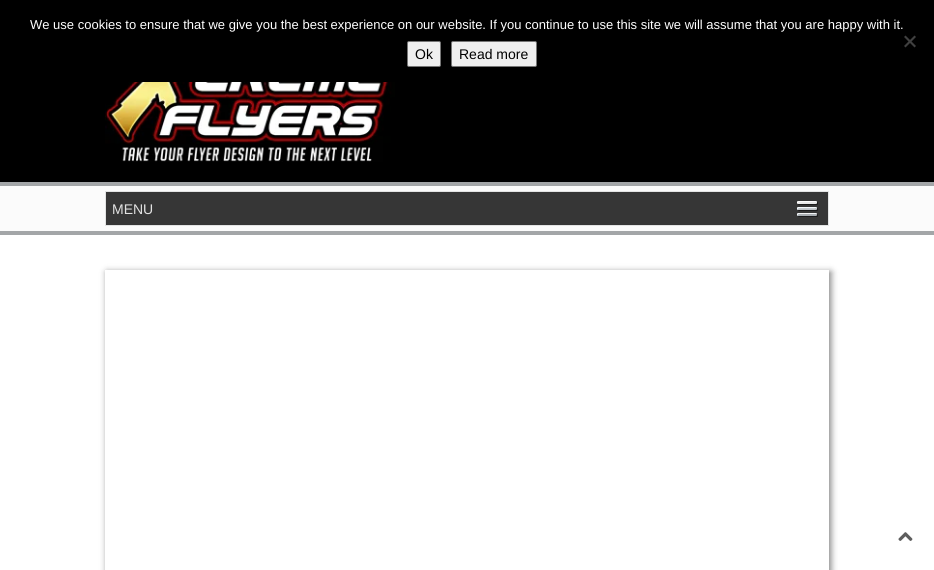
#include <cairo/cairo.h>
#include <math.h>
#include <stddef.h>

static cairo_t *cr;

static void use_color(int r, int g, int b) {
  cairo_set_source_rgb(cr, r / 255.0, g / 255.0, b / 255.0);
}

static void text(double x, double y, const char *s, const char *family, double size, int italic, int bold, int r, int g, int b) {
  cairo_select_font_face(cr, family, italic ? CAIRO_FONT_SLANT_ITALIC : CAIRO_FONT_SLANT_NORMAL,
    bold ? CAIRO_FONT_WEIGHT_BOLD : CAIRO_FONT_WEIGHT_NORMAL);
  cairo_set_font_size(cr, size);
  use_color(r, g, b);
  cairo_move_to(cr, x, y);
  cairo_show_text(cr, s);
}

static void box(double x, double y, double w, double h, int r, int g, int b) {
  use_color(r, g, b);
  cairo_rectangle(cr, x, y, w, h);
  cairo_fill(cr);
}

static void round_rect(double x, double y, double w, double h, double r) {
  cairo_new_sub_path(cr);
  cairo_arc(cr, x + w - r, y + h - r, r, 0, M_PI / 2);
  cairo_arc(cr, x + r, y + h - r, r, M_PI / 2, M_PI);
  cairo_arc(cr, x + r, y + r, r, M_PI, 1.5 * M_PI);
  cairo_arc(cr, x + w - r, y + r, r, 1.5 * M_PI, 2 * M_PI);
  cairo_close_path(cr);
}

static void shadow(double x, double y, double w, double h, double r, double blur, double alpha) {
  cairo_push_group_with_content(cr, CAIRO_CONTENT_ALPHA);
  cairo_set_operator(cr, CAIRO_OPERATOR_SOURCE);
  for (int i = 15; i >= -15 && fmin(w, h) + blur * i / 3 > 0; i -= 2) {
    double e = blur * i / 6;
    cairo_set_source_rgba(cr, 0, 0, 0, alpha * erfc((i - 1) / 8.5) / 2);
    round_rect(x - e, y - e, w + 2 * e, h + 2 * e, fmax(0, fmin(r + e + blur * .6, fmin(w, h) / 2 + e)));
    cairo_fill(cr);
  }
  cairo_pattern_t *soft = cairo_pop_group(cr);
  cairo_mask(cr, soft);
  cairo_pattern_destroy(soft);
}

static void picture(const char *path, double x, double y, double w, double h) {
  cairo_surface_t *image = cairo_image_surface_create_from_png(path);
  cairo_save(cr);
  cairo_set_source_surface(cr, image, x, y);
  cairo_rectangle(cr, x, y, w, h);
  cairo_fill(cr);
  cairo_restore(cr);
  cairo_surface_destroy(image);
}

static void draw(void) {
  use_color(255, 255, 255);
  cairo_paint(cr);
  box(0, 0, 934, 182, 0, 0, 0);
  use_color(64, 64, 64);
  cairo_new_path(cr);
  cairo_move_to(cr, 914.5, 35.5);
  cairo_line_to(cr, 916, 37);
  cairo_line_to(cr, 905.5, 47.5);
  cairo_line_to(cr, 904, 46);
  cairo_close_path(cr);
  cairo_fill(cr);
  cairo_new_path(cr);
  cairo_move_to(cr, 904, 37);
  cairo_line_to(cr, 905.5, 35.5);
  cairo_line_to(cr, 916, 46);
  cairo_line_to(cr, 914.5, 47.5);
  cairo_close_path(cr);
  cairo_fill(cr);
  use_color(239, 239, 239);
  round_rect(407.5, 41.5, 33, 25, 1.5);
  cairo_fill_preserve(cr);
  use_color(118, 118, 118);
  cairo_set_line_width(cr, 1);
  cairo_stroke(cr);
  use_color(239, 239, 239);
  round_rect(451.5, 41.5, 85, 25, 1.5);
  cairo_fill_preserve(cr);
  use_color(118, 118, 118);
  cairo_stroke(cr);
  picture("img_01.png", 105, 82, 290, 80);
  box(0, 186, 934, 45, 251, 251, 251);
  box(0, 182, 934, 4, 163, 166, 168);
  box(0, 231, 934, 4, 163, 166, 168);
  box(106, 192, 722, 33, 54, 54, 54);
  picture("img_02.png", 797, 201, 21, 16);
  cairo_rectangle(cr, 105.5, 191.5, 723, 34);
  use_color(227, 228, 228);
  cairo_stroke(cr);
  cairo_save(cr);
  cairo_set_fill_rule(cr, CAIRO_FILL_RULE_EVEN_ODD);
  cairo_new_path(cr);
  cairo_move_to(cr, 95, 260);
  cairo_line_to(cr, 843, 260);
  cairo_line_to(cr, 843, 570);
  cairo_line_to(cr, 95, 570);
  cairo_close_path(cr);
  cairo_move_to(cr, 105, 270);
  cairo_line_to(cr, 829, 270);
  cairo_line_to(cr, 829, 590);
  cairo_line_to(cr, 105, 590);
  cairo_close_path(cr);
  cairo_clip(cr);
  use_color(0, 0, 0);
  shadow(107, 272, 724, 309, 0, 3.5, 0.5);
  cairo_restore(cr);
  picture("img_03.png", 898, 532, 15, 9);
  text(30, 29, "We use cookies to ensure that we give you the best experience on our website. If you continue to use this site we will assume that you are happy with it.", "Liberation Sans", 13, 0, 0, 255, 255, 255);
  text(415, 59, "Ok", "Liberation Sans", 14, 0, 0, 0, 0, 0);
  text(459, 59, "Read more", "Liberation Sans", 14, 0, 0, 0, 0, 0);
  text(112, 214, "MENU", "Liberation Sans", 14, 0, 0, 226, 226, 226);
}

int main(void) {
  cairo_surface_t *surface = cairo_image_surface_create(CAIRO_FORMAT_RGB24, 934, 570);
  cr = cairo_create(surface);
  cairo_font_options_t *options = cairo_font_options_create();
  cairo_font_options_set_hint_metrics(options, CAIRO_HINT_METRICS_OFF);
  cairo_font_options_set_hint_style(options, CAIRO_HINT_STYLE_NONE);
  cairo_set_font_options(cr, options);
  cairo_set_miter_limit(cr, 4);
  draw();
  cairo_surface_write_to_png(surface, "out.png");
  cairo_font_options_destroy(options);
  cairo_destroy(cr);
  cairo_surface_destroy(surface);
  return 0;
}
